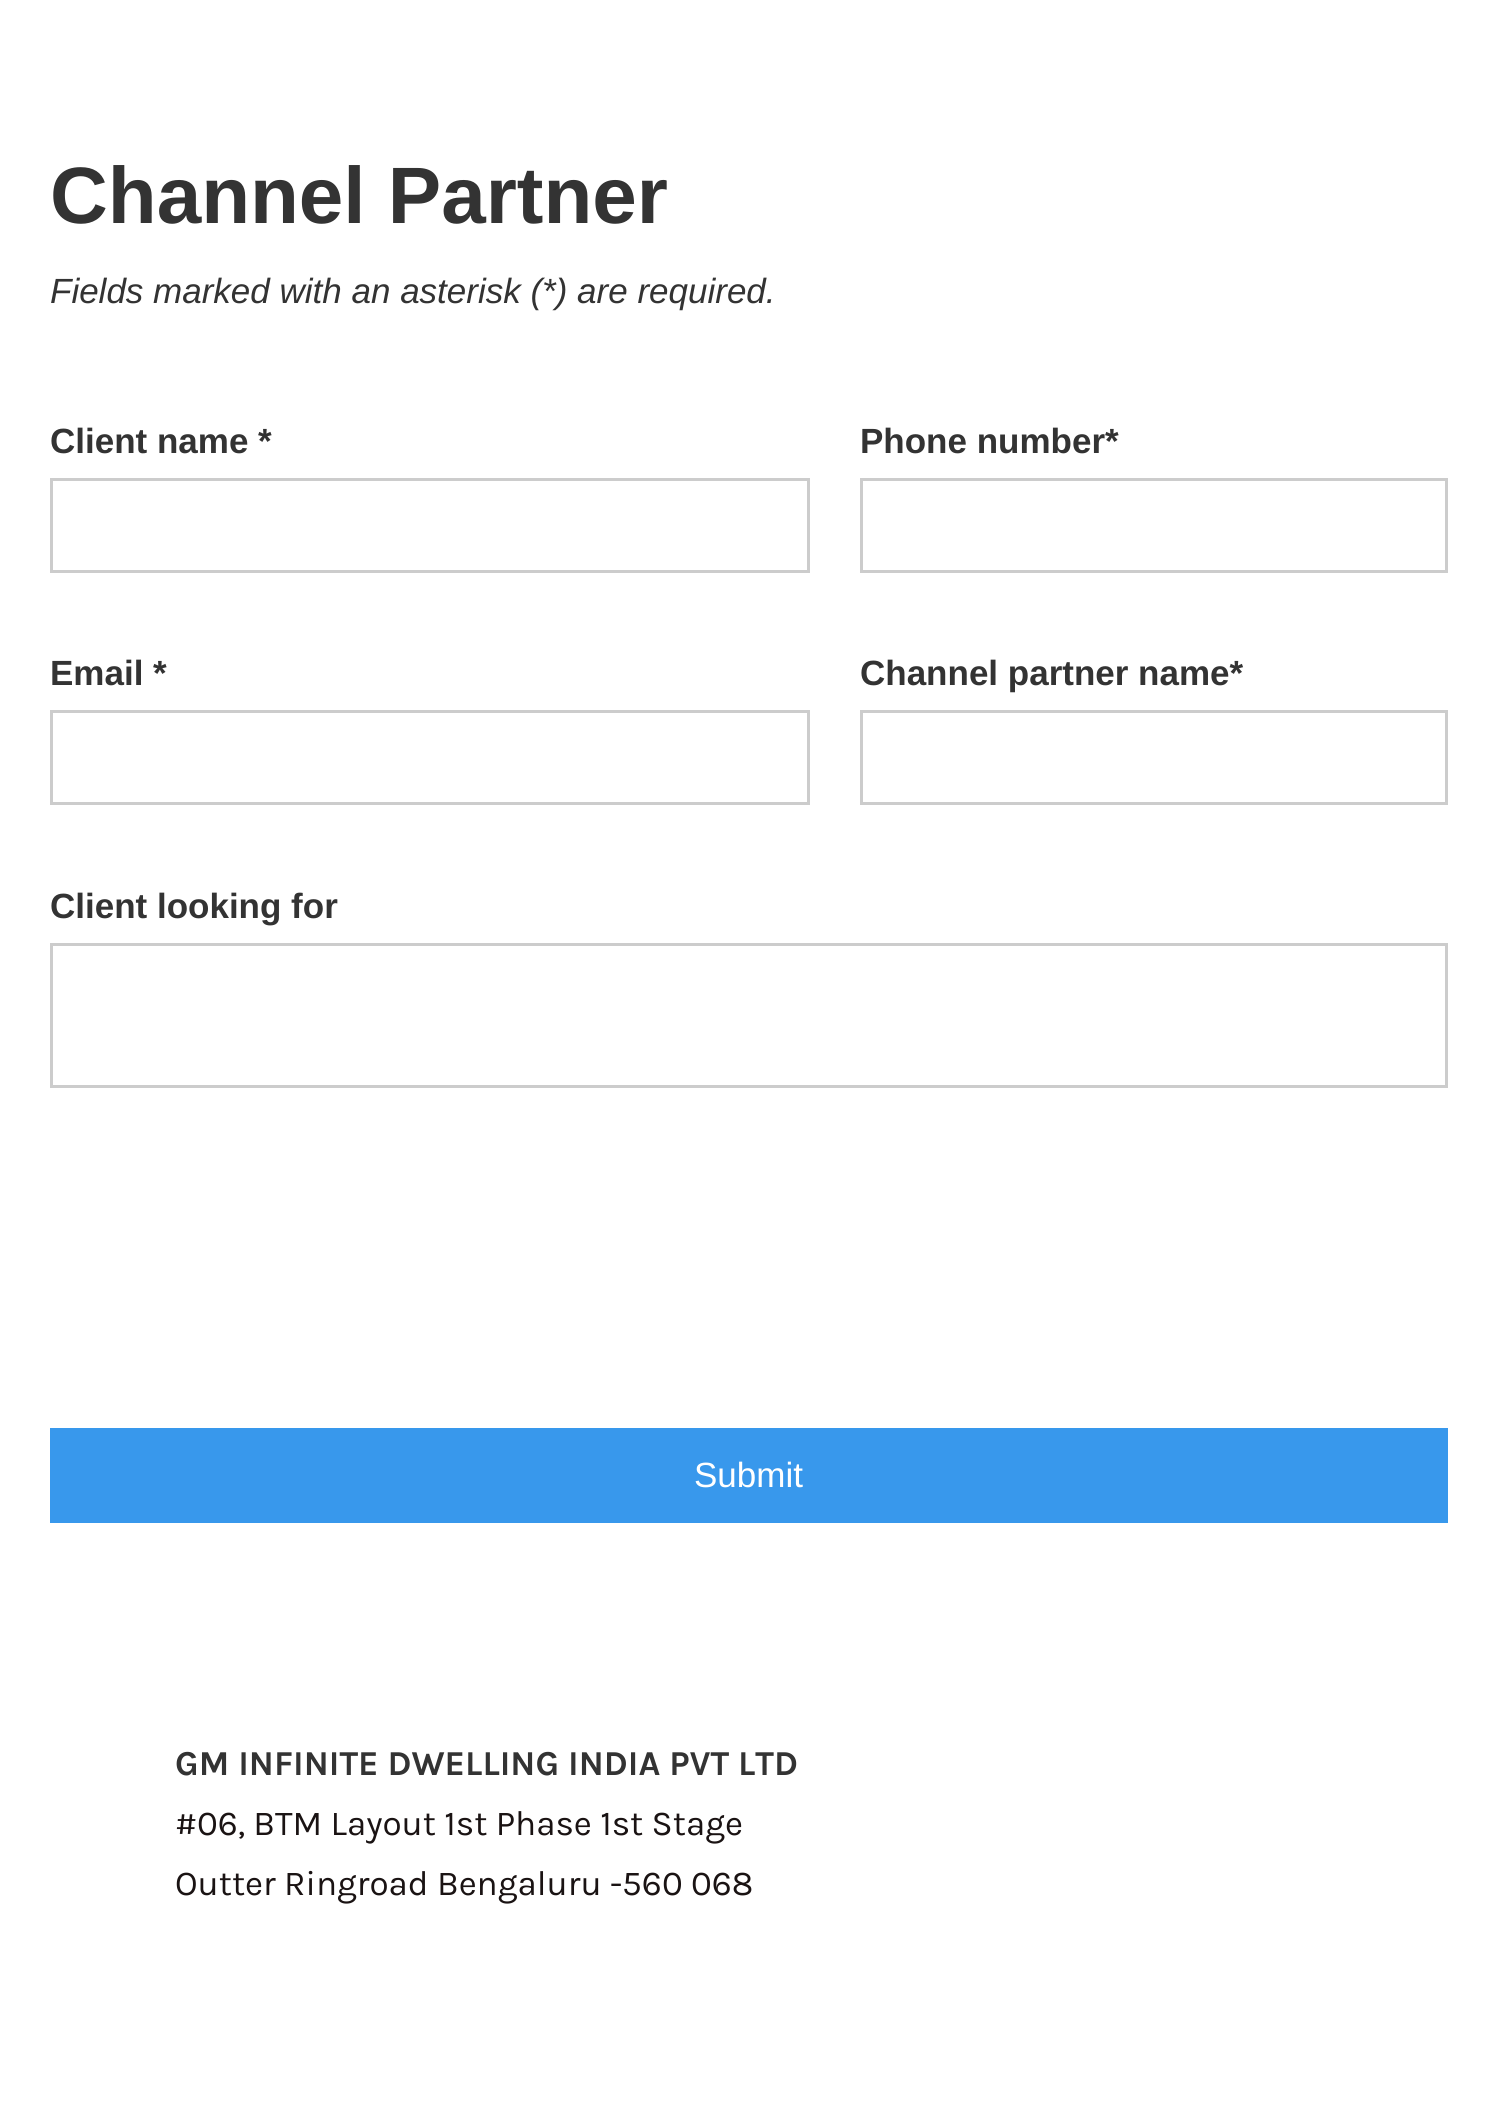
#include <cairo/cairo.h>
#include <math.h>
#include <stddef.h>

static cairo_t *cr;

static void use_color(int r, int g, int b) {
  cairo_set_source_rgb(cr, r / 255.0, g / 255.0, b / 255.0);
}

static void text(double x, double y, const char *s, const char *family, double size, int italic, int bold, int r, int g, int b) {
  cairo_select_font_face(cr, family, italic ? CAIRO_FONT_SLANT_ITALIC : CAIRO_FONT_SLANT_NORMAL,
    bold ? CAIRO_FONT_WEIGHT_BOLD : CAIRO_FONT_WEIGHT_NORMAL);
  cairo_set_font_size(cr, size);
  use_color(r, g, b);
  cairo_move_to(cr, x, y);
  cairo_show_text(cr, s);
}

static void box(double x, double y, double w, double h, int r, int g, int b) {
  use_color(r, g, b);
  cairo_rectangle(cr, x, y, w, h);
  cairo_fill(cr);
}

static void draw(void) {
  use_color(255, 255, 255);
  cairo_paint(cr);
  cairo_rectangle(cr, 51.5, 479.5, 757, 92);
  use_color(204, 204, 204);
  cairo_set_line_width(cr, 3);
  cairo_stroke(cr);
  cairo_rectangle(cr, 861.5, 479.5, 585, 92);
  cairo_stroke(cr);
  cairo_rectangle(cr, 51.5, 711.5, 757, 92);
  cairo_stroke(cr);
  cairo_rectangle(cr, 861.5, 711.5, 585, 92);
  cairo_stroke(cr);
  cairo_rectangle(cr, 51.5, 944.5, 1395, 142);
  cairo_stroke(cr);
  box(50, 1428, 1398, 95, 56, 152, 236);
  text(50, 223, "Channel Partner", "Liberation Sans", 80, 0, 1, 51, 51, 51);
  text(50, 303, "Fields marked with an asterisk (*) are required.", "Liberation Sans", 35, 1, 0, 51, 51, 51);
  text(50, 453, "Client name *", "Liberation Sans", 35, 0, 1, 51, 51, 51);
  text(860, 453, "Phone number*", "Liberation Sans", 35, 0, 1, 51, 51, 51);
  text(50, 685, "Email *", "Liberation Sans", 35, 0, 1, 51, 51, 51);
  text(860, 685, "Channel partner name*", "Liberation Sans", 35, 0, 1, 51, 51, 51);
  text(50, 918, "Client looking for", "Liberation Sans", 35, 0, 1, 51, 51, 51);
  text(694, 1487, "Submit", "Liberation Sans", 35, 0, 0, 255, 255, 255);
  text(175, 1775, "GM INFINITE DWELLING INDIA PVT LTD", "Karla", 35, 0, 1, 51, 51, 51);
  text(175, 1835, "#06, BTM Layout 1st Phase 1st Stage", "Karla", 35, 0, 0, 26, 19, 19);
  text(175, 1895, "Outter Ringroad Bengaluru -560 068", "Karla", 35, 0, 0, 26, 19, 19);
}

int main(void) {
  cairo_surface_t *surface = cairo_image_surface_create(CAIRO_FORMAT_RGB24, 1497, 2124);
  cr = cairo_create(surface);
  cairo_font_options_t *options = cairo_font_options_create();
  cairo_font_options_set_hint_metrics(options, CAIRO_HINT_METRICS_OFF);
  cairo_font_options_set_hint_style(options, CAIRO_HINT_STYLE_NONE);
  cairo_set_font_options(cr, options);
  cairo_set_miter_limit(cr, 4);
  draw();
  cairo_surface_write_to_png(surface, "out.png");
  cairo_font_options_destroy(options);
  cairo_destroy(cr);
  cairo_surface_destroy(surface);
  return 0;
}
